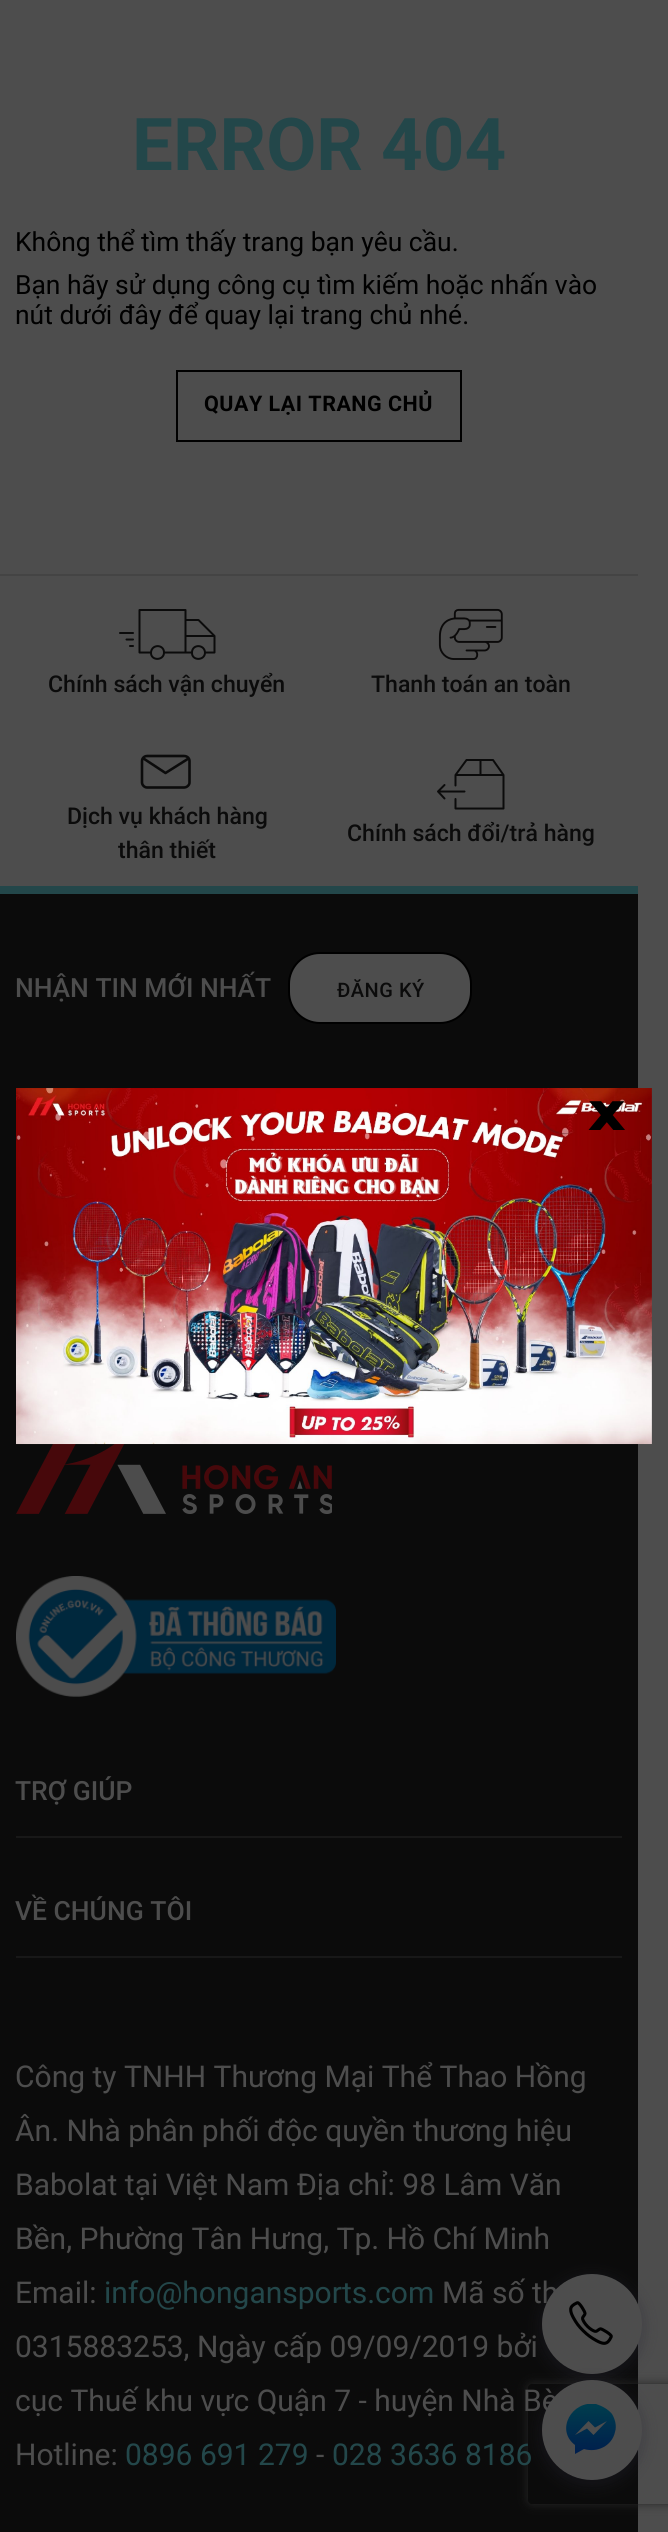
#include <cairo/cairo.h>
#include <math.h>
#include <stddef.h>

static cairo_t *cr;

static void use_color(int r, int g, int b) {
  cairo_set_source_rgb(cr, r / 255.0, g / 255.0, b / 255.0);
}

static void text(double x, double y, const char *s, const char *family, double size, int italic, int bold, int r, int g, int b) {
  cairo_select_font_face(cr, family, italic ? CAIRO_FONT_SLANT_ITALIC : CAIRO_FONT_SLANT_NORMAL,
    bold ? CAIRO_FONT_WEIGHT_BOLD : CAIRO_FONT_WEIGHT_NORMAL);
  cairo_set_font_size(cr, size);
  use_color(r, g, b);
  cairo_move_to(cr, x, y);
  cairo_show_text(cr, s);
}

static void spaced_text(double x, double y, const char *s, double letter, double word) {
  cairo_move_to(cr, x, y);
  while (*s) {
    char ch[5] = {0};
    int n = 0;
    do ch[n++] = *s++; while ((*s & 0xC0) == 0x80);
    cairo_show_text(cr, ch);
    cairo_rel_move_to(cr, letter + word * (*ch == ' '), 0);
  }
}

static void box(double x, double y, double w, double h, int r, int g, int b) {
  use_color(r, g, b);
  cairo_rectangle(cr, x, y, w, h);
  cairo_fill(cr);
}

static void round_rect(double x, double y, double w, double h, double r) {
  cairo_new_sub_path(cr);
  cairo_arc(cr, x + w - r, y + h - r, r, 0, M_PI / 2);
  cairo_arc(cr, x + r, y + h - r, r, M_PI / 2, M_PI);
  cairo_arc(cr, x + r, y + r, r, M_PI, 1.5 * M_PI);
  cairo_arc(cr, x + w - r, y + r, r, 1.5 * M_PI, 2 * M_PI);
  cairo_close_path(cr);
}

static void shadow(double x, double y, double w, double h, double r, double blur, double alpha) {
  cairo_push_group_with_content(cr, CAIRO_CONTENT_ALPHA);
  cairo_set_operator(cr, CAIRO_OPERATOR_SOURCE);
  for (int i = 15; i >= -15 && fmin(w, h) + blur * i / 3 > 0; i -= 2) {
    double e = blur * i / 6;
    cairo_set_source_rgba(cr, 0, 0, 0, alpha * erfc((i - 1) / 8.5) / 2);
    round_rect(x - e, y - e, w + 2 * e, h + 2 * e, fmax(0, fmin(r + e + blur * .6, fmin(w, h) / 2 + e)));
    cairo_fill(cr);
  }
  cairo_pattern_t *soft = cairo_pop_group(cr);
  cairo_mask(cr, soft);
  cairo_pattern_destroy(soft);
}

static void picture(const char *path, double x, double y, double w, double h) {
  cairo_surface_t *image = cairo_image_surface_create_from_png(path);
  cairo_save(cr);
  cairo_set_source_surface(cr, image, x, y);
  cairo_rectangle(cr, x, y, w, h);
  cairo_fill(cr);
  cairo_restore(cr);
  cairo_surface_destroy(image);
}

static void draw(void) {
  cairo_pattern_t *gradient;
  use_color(77, 77, 77);
  cairo_paint(cr);
  cairo_rectangle(cr, 177, 371, 284, 70);
  use_color(0, 0, 0);
  cairo_stroke(cr);
  box(0, 894, 638, 1638, 11, 11, 11);
  use_color(40, 38, 53);
  shadow(538, 2274, 108, 108, 54, 6.5, 0.28);
  cairo_save(cr);
  cairo_set_fill_rule(cr, CAIRO_FILL_RULE_EVEN_ODD);
  cairo_new_path(cr);
  cairo_move_to(cr, 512, 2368);
  cairo_line_to(cr, 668, 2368);
  cairo_line_to(cr, 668, 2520);
  cairo_line_to(cr, 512, 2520);
  cairo_close_path(cr);
  cairo_move_to(cr, 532, 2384);
  cairo_line_to(cr, 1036, 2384);
  cairo_curve_to(cr, 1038, 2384, 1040, 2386, 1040, 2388);
  cairo_line_to(cr, 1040, 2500);
  cairo_curve_to(cr, 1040, 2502, 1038, 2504, 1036, 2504);
  cairo_line_to(cr, 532, 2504);
  cairo_curve_to(cr, 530, 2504, 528, 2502, 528, 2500);
  cairo_line_to(cr, 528, 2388);
  cairo_curve_to(cr, 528, 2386, 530, 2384, 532, 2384);
  cairo_close_path(cr);
  cairo_clip(cr);
  use_color(38, 38, 38);
  shadow(528, 2384, 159, 120, 4, 5, 1);
  cairo_restore(cr);
  use_color(77, 77, 77);
  cairo_arc(cr, 592, 2324, 50, 0, 2 * M_PI);
  cairo_fill(cr);
  picture("img_01.png", 569, 2301, 44, 44);
  use_color(40, 38, 53);
  shadow(538, 2380, 108, 108, 54, 6.5, 0.28);
  use_color(77, 77, 77);
  cairo_arc(cr, 592, 2430, 50, 0, 2 * M_PI);
  cairo_fill(cr);
  cairo_save(cr);
  cairo_rectangle(cr, 566, 2404, 50, 50);
  cairo_clip(cr);
  gradient = cairo_pattern_create_linear(591, 2407, 591, 2452);
  cairo_pattern_add_color_stop_rgba(gradient, 0, 0, 0.231, 0.302, 1);
  cairo_pattern_add_color_stop_rgba(gradient, 1, 0, 0.122, 0.302, 1);
  cairo_set_source(cr, gradient);
  cairo_pattern_destroy(gradient);
  cairo_new_path(cr);
  cairo_move_to(cr, 575, 2445);
  cairo_line_to(cr, 575, 2454);
  cairo_line_to(cr, 584, 2449);
  cairo_curve_to(cr, 597, 2453, 612, 2446, 615, 2432);
  cairo_curve_to(cr, 617, 2426, 615, 2419, 612, 2414);
  cairo_curve_to(cr, 608, 2409, 602, 2406, 596, 2404);
  cairo_curve_to(cr, 572, 2400, 555, 2430, 575, 2445);
  cairo_close_path(cr);
  cairo_fill(cr);
  cairo_restore(cr);
  cairo_new_path(cr);
  cairo_move_to(cr, 588.5, 2421);
  cairo_line_to(cr, 575, 2435);
  cairo_line_to(cr, 587, 2428.5);
  cairo_line_to(cr, 593.5, 2435);
  cairo_line_to(cr, 607, 2421);
  cairo_line_to(cr, 595, 2427.5);
  cairo_close_path(cr);
  cairo_fill(cr);
  box(0, 574, 638, 2, 68, 68, 68);
  box(0, 886, 638, 8, 35, 71, 74);
  cairo_new_path(cr);
  cairo_move_to(cr, 185.5, 620);
  cairo_line_to(cr, 198.5, 620);
  cairo_line_to(cr, 214.5, 636);
  cairo_line_to(cr, 214.5, 652.5);
  cairo_line_to(cr, 205, 652.5);
  cairo_move_to(cr, 164, 652.5);
  cairo_line_to(cr, 185.5, 652.5);
  cairo_line_to(cr, 185.5, 610);
  cairo_line_to(cr, 139.5, 610);
  cairo_move_to(cr, 139.5, 610);
  cairo_line_to(cr, 139.5, 652.5);
  cairo_line_to(cr, 151, 652.5);
  cairo_move_to(cr, 120, 633);
  cairo_line_to(cr, 133, 633);
  cairo_move_to(cr, 126.5, 639.5);
  cairo_line_to(cr, 133, 639.5);
  cairo_move_to(cr, 130, 646);
  cairo_line_to(cr, 133, 646);
  cairo_move_to(cr, 185.5, 636);
  cairo_line_to(cr, 214.5, 636);
  cairo_move_to(cr, 185.5, 652.5);
  cairo_line_to(cr, 192, 652.5);
  cairo_move_to(cr, 205, 652.5);
  cairo_curve_to(cr, 205, 661, 191.5, 661, 192, 652.5);
  cairo_curve_to(cr, 192, 644, 204.5, 644, 205, 652.5);
  cairo_close_path(cr);
  cairo_move_to(cr, 164, 652.5);
  cairo_curve_to(cr, 164, 661, 150.5, 661, 151, 652.5);
  cairo_curve_to(cr, 151.5, 644, 164, 644, 164, 652.5);
  cairo_close_path(cr);
  use_color(11, 11, 11);
  cairo_set_line_cap(cr, CAIRO_LINE_CAP_ROUND);
  cairo_set_line_join(cr, CAIRO_LINE_JOIN_ROUND);
  cairo_stroke(cr);
  picture("img_02.png", 438, 608, 65, 52);
  cairo_new_path(cr);
  cairo_move_to(cr, 147, 756);
  cairo_line_to(cr, 184, 756);
  cairo_curve_to(cr, 187, 756, 189.5, 758, 189.5, 761);
  cairo_line_to(cr, 189.5, 782.5);
  cairo_curve_to(cr, 189.5, 785, 187, 787.5, 184, 787.5);
  cairo_line_to(cr, 147, 787.5);
  cairo_curve_to(cr, 144.5, 787.5, 142, 785, 142, 782.5);
  cairo_line_to(cr, 142, 761);
  cairo_curve_to(cr, 142, 758, 144.5, 756, 147, 756);
  cairo_close_path(cr);
  cairo_move_to(cr, 143.5, 758.5);
  cairo_line_to(cr, 165.5, 773);
  cairo_line_to(cr, 188.5, 758.5);
  cairo_set_line_width(cr, 2.6);
  cairo_stroke(cr);
  cairo_new_path(cr);
  cairo_move_to(cr, 455.5, 799);
  cairo_line_to(cr, 455.5, 808.5);
  cairo_line_to(cr, 503.5, 808.5);
  cairo_line_to(cr, 503.5, 775);
  cairo_line_to(cr, 455.5, 775);
  cairo_line_to(cr, 455.5, 785.5);
  cairo_move_to(cr, 503.5, 775);
  cairo_line_to(cr, 455.5, 775);
  cairo_line_to(cr, 466.5, 760);
  cairo_line_to(cr, 493, 760);
  cairo_close_path(cr);
  cairo_move_to(cr, 464.5, 791.5);
  cairo_line_to(cr, 438, 791.5);
  cairo_move_to(cr, 444.5, 798.5);
  cairo_line_to(cr, 438, 791.5);
  cairo_line_to(cr, 444.5, 785);
  cairo_move_to(cr, 480.5, 760);
  cairo_line_to(cr, 480.5, 775);
  cairo_set_line_width(cr, 2);
  cairo_stroke(cr);
  use_color(77, 77, 77);
  round_rect(289, 953, 182, 70, 31);
  cairo_fill_preserve(cr);
  use_color(0, 0, 0);
  cairo_set_line_cap(cr, CAIRO_LINE_CAP_BUTT);
  cairo_set_line_join(cr, CAIRO_LINE_JOIN_MITER);
  cairo_stroke(cr);
  picture("img_03.png", 16, 1444, 316, 70);
  picture("img_04.png", 16, 1576, 320, 121);
  box(16, 1836, 606, 2, 24, 24, 24);
  box(16, 1956, 606, 2, 24, 24, 24);
  picture("img_05.png", 16, 1088, 636, 357);
  text(132, 170, "ERROR 404", "Roboto", 72.75, 0, 1, 35, 71, 74);
  text(15, 251, "Không thể tìm thấy trang bạn yêu cầu.", "Roboto", 26.45, 0, 0, 0, 0, 0);
  text(15, 294, "Bạn hãy sử dụng công cụ tìm kiếm hoặc nhấn vào", "Roboto", 26.45, 0, 0, 0, 0, 0);
  text(15, 324, "nút dưới đây để quay lại trang chủ nhé.", "Roboto", 26.45, 0, 0, 0, 0, 0);
  cairo_select_font_face(cr, "Roboto", CAIRO_FONT_SLANT_NORMAL, CAIRO_FONT_WEIGHT_BOLD);
  cairo_set_font_size(cr, 21.5);
  spaced_text(204, 411, "QUAY LẠI TRANG CHỦ", 0.5, 0);
  text(48, 692, "Chính sách vận chuyển", "Roboto Medium", 23.1, 0, 0, 11, 11, 11);
  text(371, 692, "Thanh toán an toàn", "Roboto Medium", 23.1, 0, 0, 11, 11, 11);
  text(67, 824, "Dịch vụ khách hàng", "Roboto Medium", 23.1, 0, 0, 11, 11, 11);
  text(118, 858, "thân thiết", "Roboto Medium", 23.1, 0, 0, 11, 11, 11);
  text(347, 841, "Chính sách đổi/trả hàng", "Roboto Medium", 23.1, 0, 0, 11, 11, 11);
  text(15, 997, "NHẬN TIN MỚI NHẤT", "Roboto Medium", 26.45, 0, 0, 77, 77, 77);
  cairo_set_font_size(cr, 20);
  use_color(11, 11, 11);
  spaced_text(337, 997, "ĐĂNG KÝ", 0.5, 0);
  text(15, 1800, "TRỢ GIÚP", "Roboto Medium", 26.45, 0, 0, 77, 77, 77);
  text(15, 1920, "VỀ CHÚNG TÔI", "Roboto Medium", 26.45, 0, 0, 77, 77, 77);
  text(15, 2087, "Công ty TNHH Thương Mại Thể Thao Hồng", "Roboto", 30, 0, 0, 77, 77, 77);
  text(15, 2141, "Ân. Nhà phân phối độc quyền thương hiệu", "Roboto", 30, 0, 0, 77, 77, 77);
  text(15, 2195, "Babolat tại Việt Nam Địa chỉ: 98 Lâm Văn", "Roboto", 30, 0, 0, 77, 77, 77);
  text(15, 2249, "Bền, Phường Tân Hưng, Tp. Hồ Chí Minh", "Roboto", 30, 0, 0, 77, 77, 77);
  text(15, 2303, "Email:", "Roboto", 30, 0, 0, 77, 77, 77);
  text(104, 2303, "info@hongansports.com", "Roboto", 30, 0, 0, 35, 71, 74);
  text(442, 2303, "Mã số th", "Roboto", 30, 0, 0, 77, 77, 77);
  text(15, 2357, "0315883253, Ngày cấp 09/09/2019 bởi", "Roboto", 30, 0, 0, 77, 77, 77);
  text(15, 2411, "cục Thuế khu vực Quận 7 - huyện Nhà Bè", "Roboto", 30, 0, 0, 77, 77, 77);
  text(15, 2465, "Hotline:", "Roboto", 30, 0, 0, 77, 77, 77);
  text(125, 2465, "0896 691 279", "Roboto", 30, 0, 0, 35, 71, 74);
  text(316, 2465, "-", "Roboto", 30, 0, 0, 77, 77, 77);
  text(332, 2465, "028 3636 8186", "Roboto", 30, 0, 0, 35, 71, 74);
  text(587, 1130, "x", "Prompt", 60, 0, 1, 0, 0, 0);
}

int main(void) {
  cairo_surface_t *surface = cairo_image_surface_create(CAIRO_FORMAT_RGB24, 668, 2532);
  cr = cairo_create(surface);
  cairo_font_options_t *options = cairo_font_options_create();
  cairo_font_options_set_hint_metrics(options, CAIRO_HINT_METRICS_OFF);
  cairo_font_options_set_hint_style(options, CAIRO_HINT_STYLE_NONE);
  cairo_set_font_options(cr, options);
  cairo_set_miter_limit(cr, 4);
  draw();
  cairo_surface_write_to_png(surface, "out.png");
  cairo_font_options_destroy(options);
  cairo_destroy(cr);
  cairo_surface_destroy(surface);
  return 0;
}
